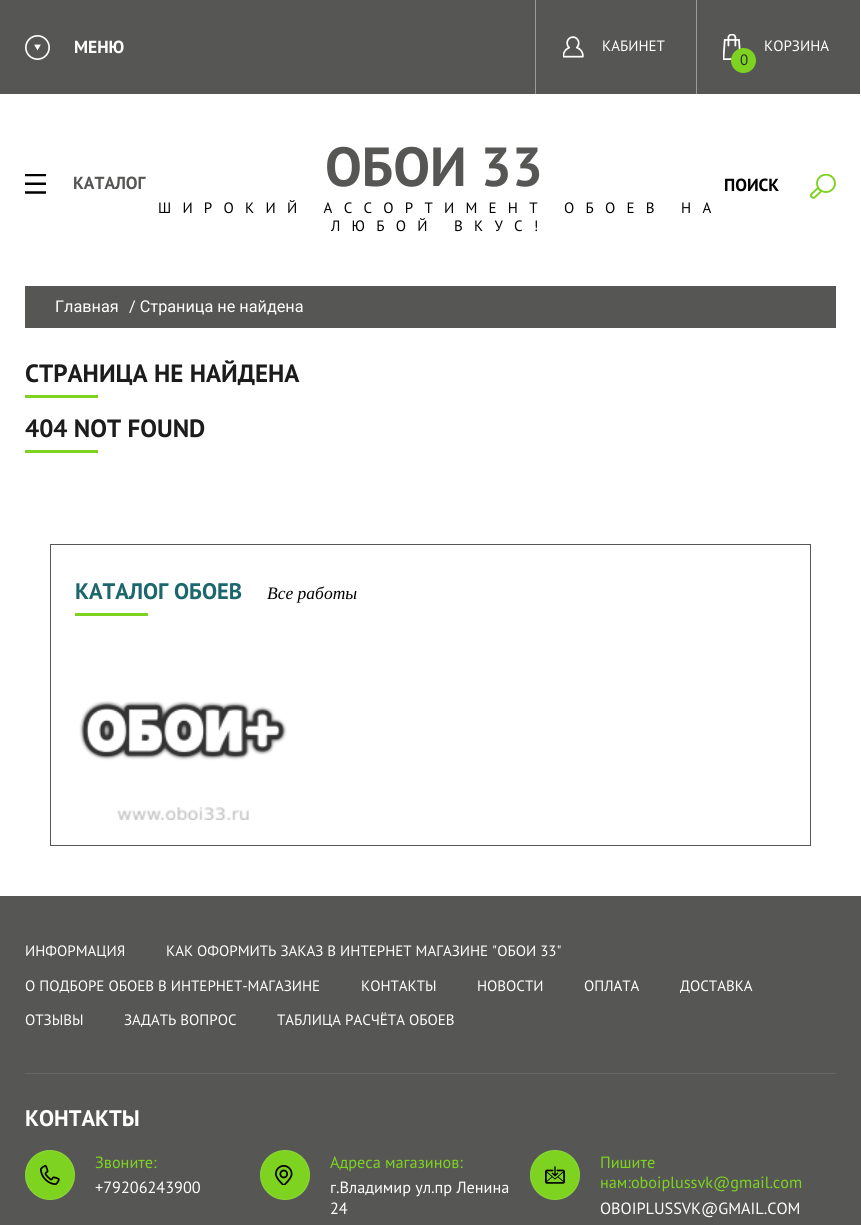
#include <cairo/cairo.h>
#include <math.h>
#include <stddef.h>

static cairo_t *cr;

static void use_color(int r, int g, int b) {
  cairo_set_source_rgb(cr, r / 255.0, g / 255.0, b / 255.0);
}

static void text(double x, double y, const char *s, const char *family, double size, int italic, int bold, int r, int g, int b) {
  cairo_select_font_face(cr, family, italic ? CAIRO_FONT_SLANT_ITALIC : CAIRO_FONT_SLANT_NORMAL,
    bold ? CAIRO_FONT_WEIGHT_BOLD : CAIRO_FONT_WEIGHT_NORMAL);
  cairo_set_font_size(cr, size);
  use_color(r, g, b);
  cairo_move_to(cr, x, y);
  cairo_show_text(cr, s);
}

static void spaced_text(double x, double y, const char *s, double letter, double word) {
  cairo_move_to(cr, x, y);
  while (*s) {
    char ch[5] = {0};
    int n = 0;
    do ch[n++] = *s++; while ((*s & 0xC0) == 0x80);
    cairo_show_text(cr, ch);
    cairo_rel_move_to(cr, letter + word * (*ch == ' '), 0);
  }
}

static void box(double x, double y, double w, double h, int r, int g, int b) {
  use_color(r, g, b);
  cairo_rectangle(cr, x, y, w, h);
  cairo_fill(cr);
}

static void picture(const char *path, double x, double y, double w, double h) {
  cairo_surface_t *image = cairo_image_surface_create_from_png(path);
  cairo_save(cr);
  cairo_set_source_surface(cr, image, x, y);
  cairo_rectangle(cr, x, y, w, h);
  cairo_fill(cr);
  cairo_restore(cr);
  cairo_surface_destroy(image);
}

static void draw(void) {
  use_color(255, 255, 255);
  cairo_paint(cr);
  box(0, 0, 860, 94, 86, 87, 85);
  picture("img_01.png", 25, 35, 25, 25);
  picture("img_02.png", 563, 36, 21, 22);
  box(535, 0, 1, 94, 155, 155, 155);
  box(696, 0, 1, 94, 155, 155, 155);
  picture("img_03.png", 723, 34, 18, 26);
  use_color(126, 211, 33);
  cairo_arc(cr, 743.5, 60.5, 12.5, 0, 2 * M_PI);
  cairo_fill(cr);
  picture("img_04.png", 25, 174, 21, 20);
  picture("img_05.png", 810, 174, 26, 25);
  box(25, 286, 811, 42, 86, 87, 85);
  box(25, 395, 73, 3, 126, 211, 33);
  box(25, 450, 73, 3, 126, 211, 33);
  cairo_rectangle(cr, 50.5, 544.5, 760, 301);
  use_color(86, 87, 85);
  cairo_set_line_width(cr, 1);
  cairo_stroke(cr);
  box(75, 613, 73, 3, 126, 211, 33);
  picture("img_06.png", 79, 701, 208, 119);
  box(0, 896, 861, 329, 86, 87, 85);
  box(25, 1073, 811, 1, 103, 104, 102);
  use_color(126, 211, 33);
  cairo_arc(cr, 50, 1175, 25, 0, 2 * M_PI);
  cairo_fill(cr);
  picture("img_07.png", 40, 1165, 20, 20);
  cairo_arc(cr, 50, 1175, 24.5, 0, 2 * M_PI);
  cairo_set_source_rgba(cr, 1, 1, 1, 0.1);
  cairo_stroke(cr);
  use_color(126, 211, 33);
  cairo_arc(cr, 285, 1175, 25, 0, 2 * M_PI);
  cairo_fill(cr);
  picture("img_08.png", 275, 1165, 18, 20);
  cairo_arc(cr, 285, 1175, 24.5, 0, 2 * M_PI);
  cairo_set_source_rgba(cr, 1, 1, 1, 0.1);
  cairo_stroke(cr);
  use_color(126, 211, 33);
  cairo_arc(cr, 555, 1175, 25, 0, 2 * M_PI);
  cairo_fill(cr);
  picture("img_09.png", 545, 1166, 20, 18);
  cairo_arc(cr, 555, 1175, 24.5, 0, 2 * M_PI);
  cairo_set_source_rgba(cr, 1, 1, 1, 0.1);
  cairo_stroke(cr);
  text(74, 53, "МЕНЮ", "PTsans", 17.5, 0, 1, 255, 255, 255);
  text(602, 51, "КАБИНЕТ", "PTsans", 15, 0, 0, 255, 255, 255);
  text(764, 51, "КОРЗИНА", "PTsans", 15, 0, 0, 255, 255, 255);
  text(740, 65, "0", "PTsans", 15, 0, 0, 44, 44, 44);
  text(73, 189, "КАТАЛОГ", "PTsans", 17.5, 0, 1, 86, 87, 85);
  text(325, 186, "ОБОИ 33", "PTsans", 55, 0, 1, 86, 87, 85);
  cairo_select_font_face(cr, "PTsans", CAIRO_FONT_SLANT_NORMAL, CAIRO_FONT_WEIGHT_NORMAL);
  cairo_set_font_size(cr, 15);
  use_color(0, 0, 0);
  spaced_text(158, 213, "ШИРОКИЙ АССОРТИМЕНТ ОБОЕВ НА", 11.25, 0);
  spaced_text(331, 231, "ЛЮБОЙ ВКУС!", 11.25, 0);
  text(724, 191, "ПОИСК", "PTsans", 17.5, 0, 1, 0, 0, 0);
  text(55, 312, "Главная", "Roboto", 16.25, 0, 0, 255, 255, 255);
  text(129, 312, "/ Страница не найдена", "Roboto", 16.25, 0, 0, 255, 255, 255);
  text(25, 382, "СТРАНИЦА НЕ НАЙДЕНА", "PTsans", 25, 0, 1, 28, 28, 28);
  text(25, 437, "404 NOT FOUND", "PTsans", 25, 0, 1, 28, 28, 28);
  text(75, 599, "КАТАЛОГ ОБОЕВ", "PTsans", 22.5, 0, 1, 27, 103, 107);
  text(267, 599, "Все работы", "Liberation Serif", 17.5, 1, 0, 0, 0, 0);
  text(25, 956, "ИНФОРМАЦИЯ", "PTsans", 15, 0, 0, 255, 255, 255);
  text(166, 956, "КАК ОФОРМИТЬ ЗАКАЗ В ИНТЕРНЕТ МАГАЗИНЕ \"ОБОИ 33\"", "PTsans", 15, 0, 0, 255, 255, 255);
  text(25, 991, "О ПОДБОРЕ ОБОЕВ В ИНТЕРНЕТ-МАГАЗИНЕ", "PTsans", 15, 0, 0, 255, 255, 255);
  text(361, 991, "КОНТАКТЫ", "PTsans", 15, 0, 0, 255, 255, 255);
  text(477, 991, "НОВОСТИ", "PTsans", 15, 0, 0, 255, 255, 255);
  text(584, 991, "ОПЛАТА", "PTsans", 15, 0, 0, 255, 255, 255);
  text(680, 991, "ДОСТАВКА", "PTsans", 15, 0, 0, 255, 255, 255);
  text(25, 1025, "ОТЗЫВЫ", "PTsans", 15, 0, 0, 255, 255, 255);
  text(124, 1025, "ЗАДАТЬ ВОПРОС", "PTsans", 15, 0, 0, 255, 255, 255);
  text(277, 1025, "ТАБЛИЦА РАСЧЁТА ОБОЕВ", "PTsans", 15, 0, 0, 255, 255, 255);
  text(25, 1126, "КОНТАКТЫ", "PTsans", 22.5, 0, 1, 255, 255, 255);
  text(95, 1168, "Звоните:", "PTsans", 16.25, 0, 0, 126, 211, 33);
  text(95, 1193, "+79206243900", "PTsans", 16.25, 0, 0, 255, 255, 255);
  text(330, 1168, "Адреса магазинов:", "PTsans", 16.25, 0, 0, 126, 211, 33);
  text(330, 1193, "г.Владимир ул.пр Ленина", "PTsans", 16.25, 0, 0, 255, 255, 255);
  text(330, 1214, "24", "PTsans", 16.25, 0, 0, 255, 255, 255);
  text(600, 1168, "Пишите", "PTsans", 16.25, 0, 0, 126, 211, 33);
  text(600, 1188, "нам:oboiplussvk@gmail.com", "PTsans", 16.25, 0, 0, 126, 211, 33);
  text(600, 1214, "OBOIPLUSSVK@GMAIL.COM", "PTsans", 16.25, 0, 0, 255, 255, 255);
}

int main(void) {
  cairo_surface_t *surface = cairo_image_surface_create(CAIRO_FORMAT_RGB24, 861, 1225);
  cr = cairo_create(surface);
  cairo_font_options_t *options = cairo_font_options_create();
  cairo_font_options_set_hint_metrics(options, CAIRO_HINT_METRICS_OFF);
  cairo_font_options_set_hint_style(options, CAIRO_HINT_STYLE_NONE);
  cairo_set_font_options(cr, options);
  cairo_set_miter_limit(cr, 4);
  draw();
  cairo_surface_write_to_png(surface, "out.png");
  cairo_font_options_destroy(options);
  cairo_destroy(cr);
  cairo_surface_destroy(surface);
  return 0;
}
